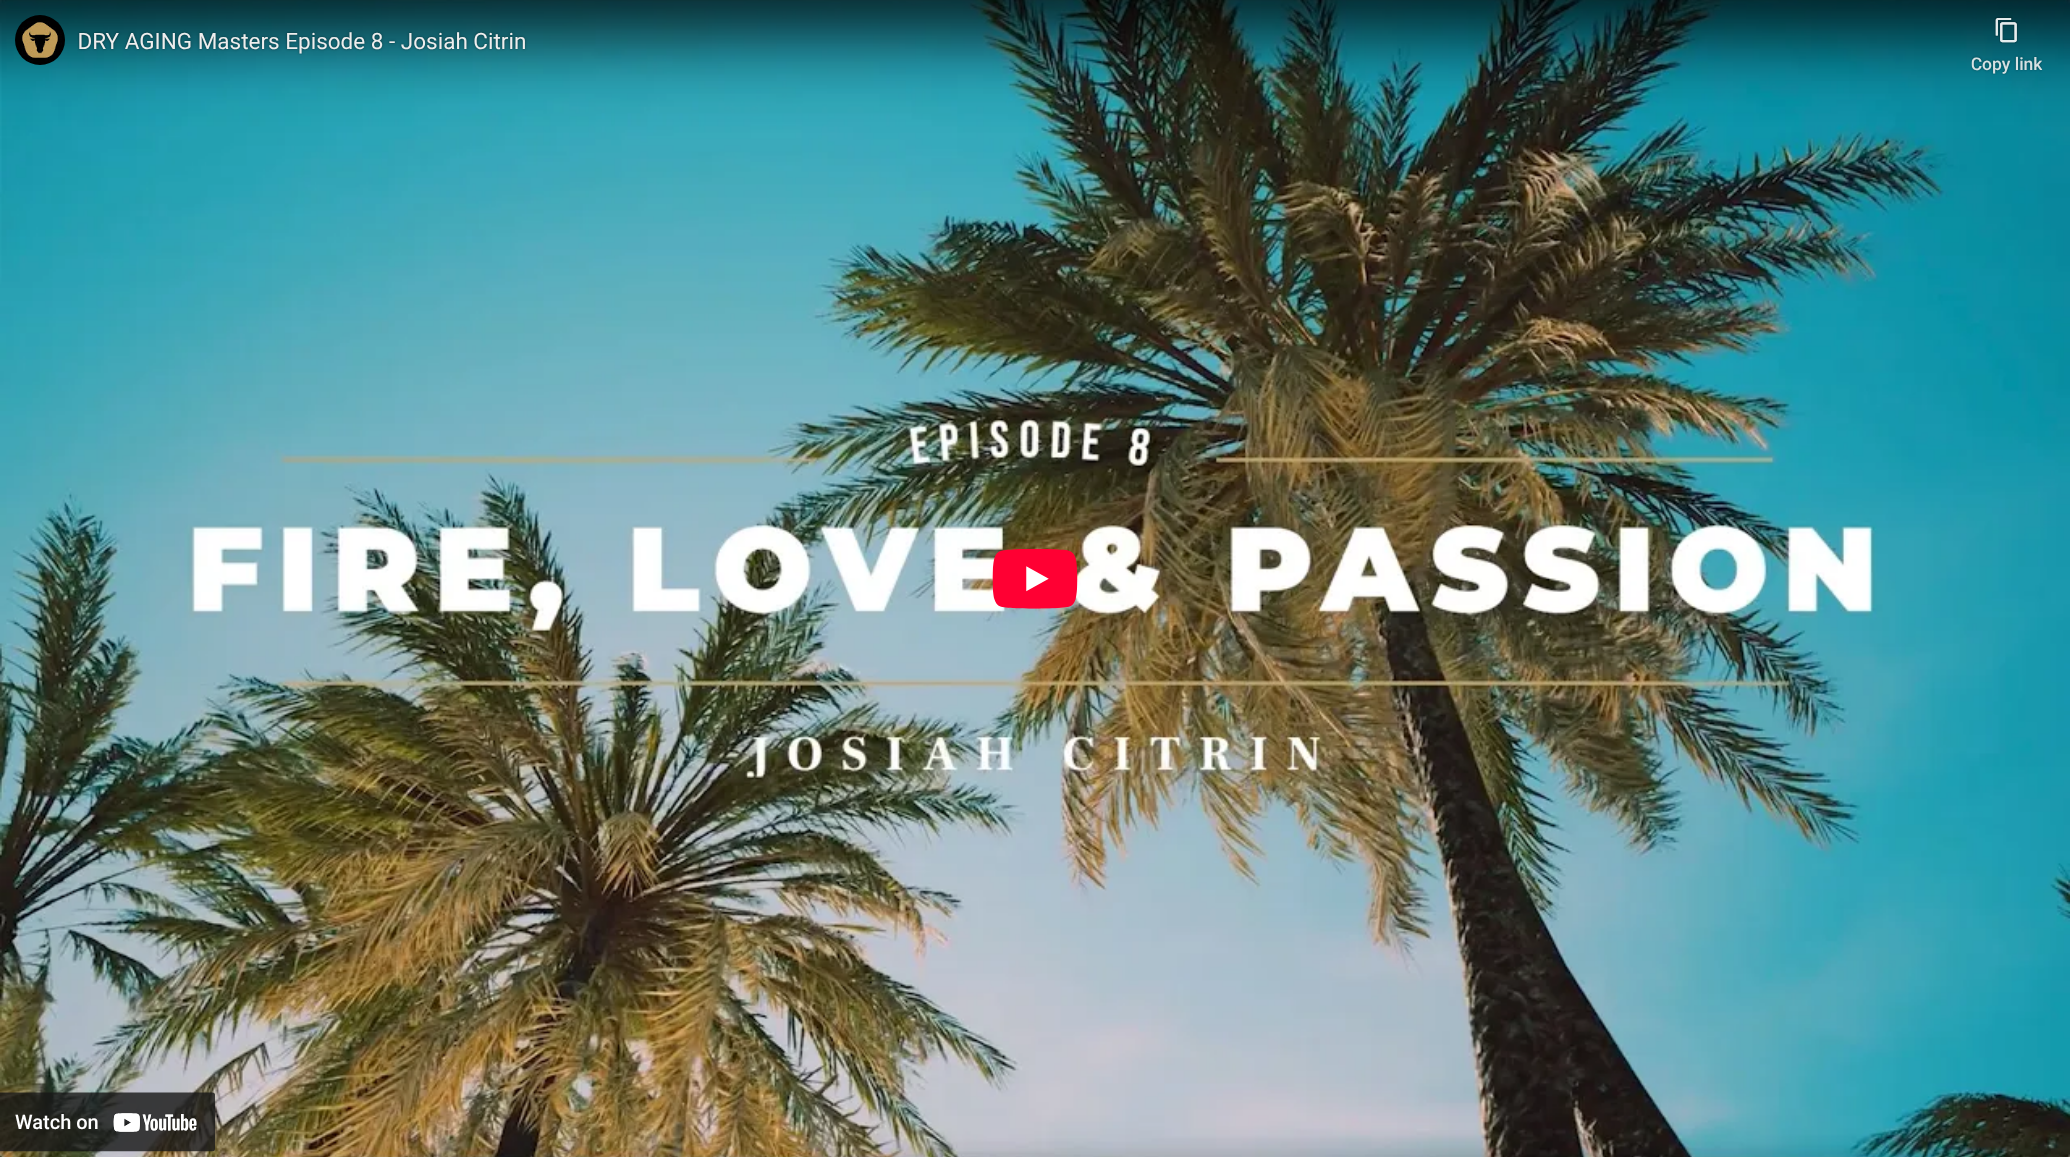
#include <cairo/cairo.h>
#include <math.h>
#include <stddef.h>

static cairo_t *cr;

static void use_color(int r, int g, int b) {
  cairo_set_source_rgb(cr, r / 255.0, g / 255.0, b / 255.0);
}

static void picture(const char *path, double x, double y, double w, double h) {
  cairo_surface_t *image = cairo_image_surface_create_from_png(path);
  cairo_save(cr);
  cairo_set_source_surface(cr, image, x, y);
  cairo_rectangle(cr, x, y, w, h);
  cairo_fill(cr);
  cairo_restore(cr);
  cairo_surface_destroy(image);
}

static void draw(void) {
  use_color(255, 255, 255);
  cairo_paint(cr);
  picture("img_01.png", 0, 0, 2070, 1157);
}

int main(void) {
  cairo_surface_t *surface = cairo_image_surface_create(CAIRO_FORMAT_RGB24, 2070, 1157);
  cr = cairo_create(surface);
  cairo_font_options_t *options = cairo_font_options_create();
  cairo_font_options_set_hint_metrics(options, CAIRO_HINT_METRICS_OFF);
  cairo_font_options_set_hint_style(options, CAIRO_HINT_STYLE_NONE);
  cairo_set_font_options(cr, options);
  cairo_set_miter_limit(cr, 4);
  draw();
  cairo_surface_write_to_png(surface, "out.png");
  cairo_font_options_destroy(options);
  cairo_destroy(cr);
  cairo_surface_destroy(surface);
  return 0;
}
